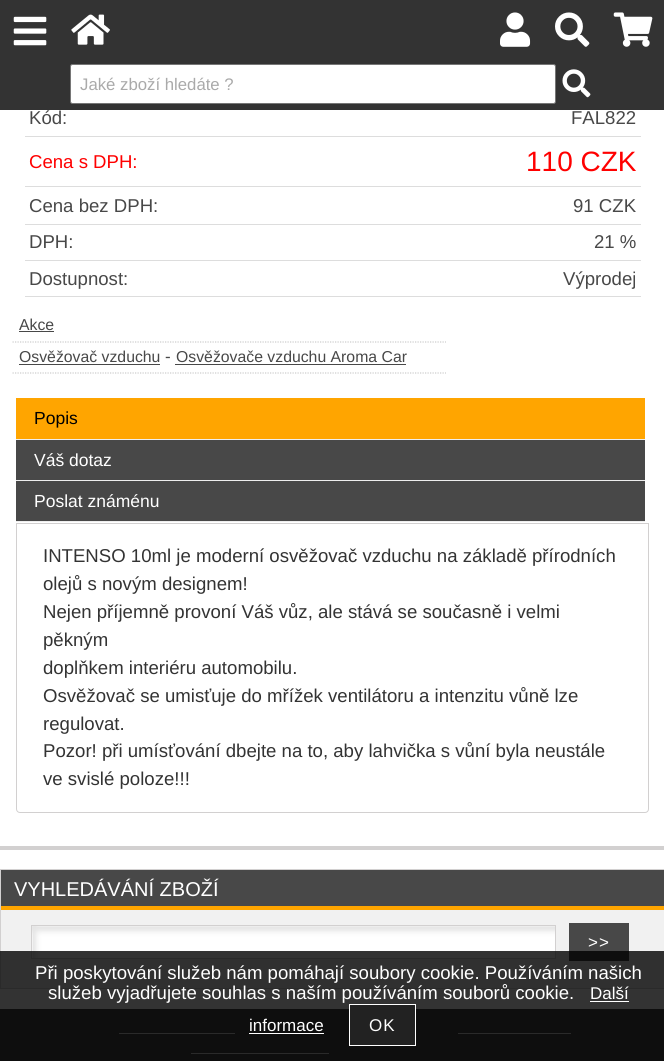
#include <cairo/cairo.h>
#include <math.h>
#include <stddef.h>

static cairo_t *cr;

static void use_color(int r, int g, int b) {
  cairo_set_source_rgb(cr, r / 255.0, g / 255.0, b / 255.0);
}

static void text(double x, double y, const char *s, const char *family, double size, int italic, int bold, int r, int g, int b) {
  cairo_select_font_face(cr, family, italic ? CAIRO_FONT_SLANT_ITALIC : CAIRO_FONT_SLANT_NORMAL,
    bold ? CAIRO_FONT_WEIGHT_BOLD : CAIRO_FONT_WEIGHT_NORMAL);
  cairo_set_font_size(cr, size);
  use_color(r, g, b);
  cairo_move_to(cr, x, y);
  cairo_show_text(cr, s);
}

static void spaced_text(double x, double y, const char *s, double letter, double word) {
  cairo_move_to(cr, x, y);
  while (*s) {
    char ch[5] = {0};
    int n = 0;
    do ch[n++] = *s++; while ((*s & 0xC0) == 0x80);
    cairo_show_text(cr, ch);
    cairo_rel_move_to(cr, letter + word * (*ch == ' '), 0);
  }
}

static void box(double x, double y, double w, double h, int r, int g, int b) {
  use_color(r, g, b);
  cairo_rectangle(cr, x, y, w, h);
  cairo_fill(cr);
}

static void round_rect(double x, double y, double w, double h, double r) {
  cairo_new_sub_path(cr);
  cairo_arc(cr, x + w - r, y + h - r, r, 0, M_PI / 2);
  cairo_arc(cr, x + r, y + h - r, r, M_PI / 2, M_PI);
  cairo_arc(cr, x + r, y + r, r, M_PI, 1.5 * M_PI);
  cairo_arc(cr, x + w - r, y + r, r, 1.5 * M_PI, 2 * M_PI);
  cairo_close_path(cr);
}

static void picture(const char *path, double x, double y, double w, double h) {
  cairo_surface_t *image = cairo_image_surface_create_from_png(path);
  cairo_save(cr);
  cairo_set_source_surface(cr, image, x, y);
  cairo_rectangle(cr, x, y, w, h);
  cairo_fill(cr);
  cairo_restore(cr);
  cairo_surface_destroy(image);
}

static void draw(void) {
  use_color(255, 255, 255);
  cairo_paint(cr);
  box(0, 0, 664, 110, 51, 51, 51);
  picture("img_01.png", 13, 16, 34, 30);
  picture("img_02.png", 71, 14, 39, 31);
  picture("img_03.png", 500, 12, 31, 35);
  picture("img_04.png", 555, 12, 35, 35);
  picture("img_05.png", 613, 12, 40, 35);
  use_color(255, 255, 255);
  round_rect(70.5, 64.5, 485, 39, 2);
  cairo_fill_preserve(cr);
  use_color(118, 118, 118);
  cairo_set_line_width(cr, 1);
  cairo_stroke(cr);
  picture("img_06.png", 562, 69, 29, 29);
  box(25, 136, 616, 1, 221, 221, 221);
  box(25, 186, 616, 1, 221, 221, 221);
  box(25, 224, 616, 1, 221, 221, 221);
  box(25, 260, 616, 1, 221, 221, 221);
  box(25, 296, 616, 1, 221, 221, 221);
  cairo_new_path(cr);
  cairo_move_to(cr, 12.5, 342);
  cairo_line_to(cr, 446, 342);
  use_color(204, 204, 204);
  cairo_set_line_width(cr, 1.2);
  cairo_set_dash(cr, (double[]){1.25, 1.25}, 2, 0);
  cairo_stroke(cr);
  box(19, 331, 35, 1, 72, 72, 72);
  cairo_new_path(cr);
  cairo_move_to(cr, 12.5, 373);
  cairo_line_to(cr, 446, 373);
  use_color(204, 204, 204);
  cairo_stroke(cr);
  box(19, 364, 141, 1, 72, 72, 72);
  box(175, 364, 231, 1, 72, 72, 72);
  box(16, 398, 629, 41, 255, 165, 0);
  box(16, 439, 629, 1, 238, 238, 238);
  box(16, 440, 629, 40, 72, 72, 72);
  box(16, 480, 629, 1, 238, 238, 238);
  box(16, 481, 629, 40, 72, 72, 72);
  box(16, 521, 629, 1, 238, 238, 238);
  cairo_new_path(cr);
  cairo_move_to(cr, 16.5, 523.5);
  cairo_line_to(cr, 648.5, 523.5);
  cairo_line_to(cr, 648.5, 809);
  cairo_curve_to(cr, 648.5, 811, 647, 812.5, 645, 812.5);
  cairo_line_to(cr, 20, 812.5);
  cairo_curve_to(cr, 18, 812.5, 16.5, 811, 16.5, 809);
  cairo_close_path(cr);
  use_color(210, 208, 208);
  cairo_set_line_width(cr, 1);
  cairo_set_dash(cr, NULL, 0, 0);
  cairo_stroke(cr);
  box(0, 846, 664, 4, 210, 208, 208);
  cairo_rectangle(cr, 0.5, 869.5, 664, 119);
  cairo_stroke(cr);
  box(1, 870, 663, 36, 72, 72, 72);
  box(1, 906, 663, 4, 255, 165, 0);
  box(1, 910, 663, 78, 241, 241, 241);
  picture("img_07.png", 32, 926, 523, 32);
  cairo_rectangle(cr, 31.5, 925.5, 524, 33);
  use_color(210, 208, 208);
  cairo_stroke(cr);
  box(569, 923, 60, 38, 72, 72, 72);
  box(0, 1009, 664, 52, 72, 72, 72);
  box(119, 1033, 116, 1, 210, 208, 208);
  box(458, 1033, 113, 1, 210, 208, 208);
  box(191, 1053, 138, 1, 210, 208, 208);
  cairo_set_source_rgba(cr, 0, 0, 0, 0.8);
  cairo_rectangle(cr, 0, 951, 664, 110);
  cairo_fill(cr);
  box(590, 1001, 39, 1, 255, 255, 255);
  box(249, 1033, 75, 1, 255, 255, 255);
  use_color(34, 34, 34);
  cairo_rectangle(cr, 349.5, 1004.5, 66, 41);
  cairo_fill_preserve(cr);
  use_color(255, 255, 255);
  cairo_stroke(cr);
  text(80, 90, "Jaké zboží hledáte ?", "Liberation Sans", 16.75, 0, 0, 170, 170, 170);
  text(29, 124, "Kód:", "Liberation Sans", 18.6, 0, 0, 72, 72, 72);
  text(571, 124, "FAL822", "Liberation Sans", 18.6, 0, 0, 72, 72, 72);
  text(29, 168, "Cena s DPH:", "Liberation Sans", 18.6, 0, 0, 255, 0, 0);
  text(526, 171, "110 CZK", "Liberation Sans", 28, 0, 0, 255, 0, 0);
  text(29, 212, "Cena bez DPH:", "Liberation Sans", 18.6, 0, 0, 72, 72, 72);
  text(573, 212, "91 CZK", "Liberation Sans", 18.6, 0, 0, 72, 72, 72);
  text(29, 248, "DPH:", "Liberation Sans", 18.6, 0, 0, 72, 72, 72);
  text(594, 248, "21 %", "Liberation Sans", 18.6, 0, 0, 72, 72, 72);
  text(29, 285, "Dostupnost:", "Liberation Sans", 18.6, 0, 0, 72, 72, 72);
  text(563, 285, "Výprodej", "Liberation Sans", 18.6, 0, 0, 72, 72, 72);
  text(19, 330, "Akce", "Liberation Sans", 15.8, 0, 0, 72, 72, 72);
  text(19, 362, "Osvěžovač vzduchu", "Liberation Sans", 15.8, 0, 0, 72, 72, 72);
  text(165, 362, "-", "Liberation Sans", 17, 0, 0, 72, 72, 72);
  text(176, 362, "Osvěžovače vzduchu Aroma Car", "Liberation Sans", 15.8, 0, 0, 72, 72, 72);
  text(34, 424, "Popis", "Liberation Sans", 17.5, 0, 0, 0, 0, 0);
  text(34, 466, "Váš dotaz", "Liberation Sans", 17.5, 0, 0, 255, 255, 255);
  text(34, 507, "Poslat známénu", "Liberation Sans", 17.5, 0, 0, 255, 255, 255);
  text(43, 562, "INTENSO 10ml je moderní osvěžovač vzduchu na základě přírodních", "Liberation Sans", 18.6, 0, 0, 51, 51, 51);
  text(43, 590, "olejů s novým designem!", "Liberation Sans", 18.6, 0, 0, 51, 51, 51);
  text(43, 618, "Nejen příjemně provoní Váš vůz, ale stává se současně i velmi", "Liberation Sans", 18.6, 0, 0, 51, 51, 51);
  text(43, 646, "pěkným", "Liberation Sans", 18.6, 0, 0, 51, 51, 51);
  text(43, 674, "doplňkem interiéru automobilu.", "Liberation Sans", 18.6, 0, 0, 51, 51, 51);
  text(43, 702, "Osvěžovač se umisťuje do mřížek ventilátoru a intenzitu vůně lze", "Liberation Sans", 18.6, 0, 0, 51, 51, 51);
  text(43, 730, "regulovat.", "Liberation Sans", 18.6, 0, 0, 51, 51, 51);
  text(43, 757, "Pozor! při umísťování dbejte na to, aby lahvička s vůní byla neustále", "Liberation Sans", 18.6, 0, 0, 51, 51, 51);
  text(43, 785, "ve svislé poloze!!!", "Liberation Sans", 18.6, 0, 0, 51, 51, 51);
  text(14, 896, "VYHLEDÁVÁNÍ ZBOŽÍ", "Liberation Sans", 20, 0, 0, 255, 255, 255);
  cairo_set_font_size(cr, 17);
  spaced_text(588, 948, ">>", 1, 0);
  text(35, 979, "Při poskytování služeb nám pomáhají soubory cookie. Používáním našich", "Liberation Sans", 18.6, 0, 0, 255, 255, 255);
  text(48, 999, "služeb vyjadřujete souhlas s naším používáním souborů cookie.", "Liberation Sans", 18.6, 0, 0, 255, 255, 255);
  text(590, 999, "Další", "Liberation Sans", 17, 0, 0, 255, 255, 255);
  text(249, 1031, "informace", "Liberation Sans", 17, 0, 0, 255, 255, 255);
  spaced_text(369, 1031, "OK", 1, 0);
}

int main(void) {
  cairo_surface_t *surface = cairo_image_surface_create(CAIRO_FORMAT_RGB24, 664, 1061);
  cr = cairo_create(surface);
  cairo_font_options_t *options = cairo_font_options_create();
  cairo_font_options_set_hint_metrics(options, CAIRO_HINT_METRICS_OFF);
  cairo_font_options_set_hint_style(options, CAIRO_HINT_STYLE_NONE);
  cairo_set_font_options(cr, options);
  cairo_set_miter_limit(cr, 4);
  draw();
  cairo_surface_write_to_png(surface, "out.png");
  cairo_font_options_destroy(options);
  cairo_destroy(cr);
  cairo_surface_destroy(surface);
  return 0;
}
